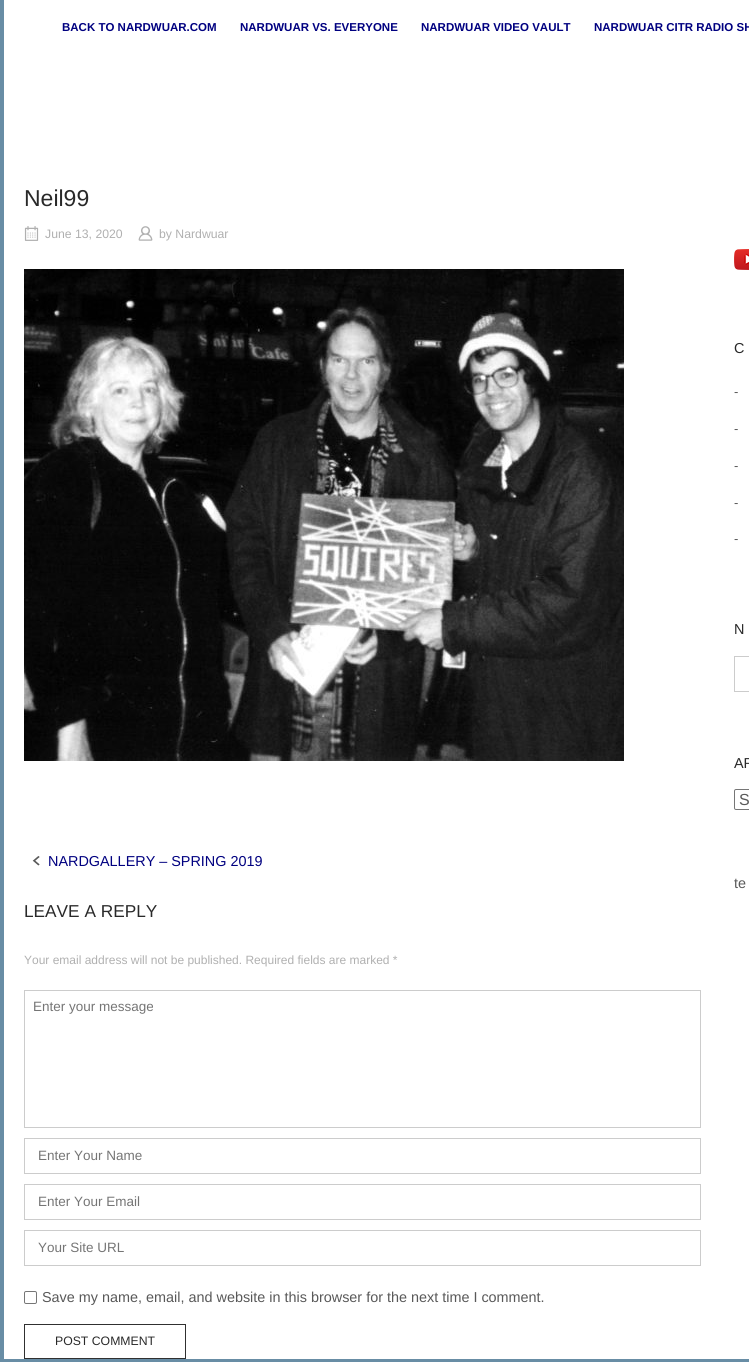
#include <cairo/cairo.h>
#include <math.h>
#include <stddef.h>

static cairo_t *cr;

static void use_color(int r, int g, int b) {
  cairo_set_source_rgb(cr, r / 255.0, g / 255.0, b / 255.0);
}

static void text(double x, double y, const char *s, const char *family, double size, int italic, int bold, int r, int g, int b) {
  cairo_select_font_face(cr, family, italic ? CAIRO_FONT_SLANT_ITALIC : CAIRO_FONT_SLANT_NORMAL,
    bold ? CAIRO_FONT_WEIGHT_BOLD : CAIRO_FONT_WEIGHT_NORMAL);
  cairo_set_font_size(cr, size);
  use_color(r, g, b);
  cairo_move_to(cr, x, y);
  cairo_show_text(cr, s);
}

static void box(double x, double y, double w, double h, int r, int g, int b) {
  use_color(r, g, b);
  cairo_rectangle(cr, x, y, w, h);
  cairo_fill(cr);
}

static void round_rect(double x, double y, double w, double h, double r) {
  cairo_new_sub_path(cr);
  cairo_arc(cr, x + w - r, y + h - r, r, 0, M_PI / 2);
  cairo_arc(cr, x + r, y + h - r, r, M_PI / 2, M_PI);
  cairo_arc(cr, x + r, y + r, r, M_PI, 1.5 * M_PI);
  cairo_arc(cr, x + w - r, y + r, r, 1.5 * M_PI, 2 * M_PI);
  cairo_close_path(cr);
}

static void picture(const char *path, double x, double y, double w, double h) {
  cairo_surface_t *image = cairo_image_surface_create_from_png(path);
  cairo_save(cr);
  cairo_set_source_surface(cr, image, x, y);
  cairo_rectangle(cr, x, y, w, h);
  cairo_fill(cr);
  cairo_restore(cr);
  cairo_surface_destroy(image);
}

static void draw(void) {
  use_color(255, 255, 255);
  cairo_paint(cr);
  box(0, 1359, 749, 3, 104, 141, 165);
  box(0, 0, 4, 1362, 104, 141, 165);
  picture("img_01.png", 24, 226, 15, 15);
  picture("img_02.png", 138, 226, 15, 15);
  picture("img_03.png", 24, 269, 600, 492);
  picture("img_04.png", 32, 856, 8, 10);
  cairo_rectangle(cr, 24.5, 990.5, 676, 137);
  use_color(204, 204, 204);
  cairo_set_line_width(cr, 1);
  cairo_stroke(cr);
  cairo_rectangle(cr, 24.5, 1138.5, 676, 35);
  cairo_stroke(cr);
  cairo_rectangle(cr, 24.5, 1184.5, 676, 35);
  cairo_stroke(cr);
  cairo_rectangle(cr, 24.5, 1230.5, 676, 35);
  cairo_stroke(cr);
  round_rect(24.5, 1291.5, 12, 12, 1.5);
  use_color(118, 118, 118);
  cairo_stroke(cr);
  cairo_rectangle(cr, 24.5, 1324.5, 161, 34);
  use_color(48, 48, 48);
  cairo_stroke(cr);
  picture("img_05.png", 734, 249, 15, 21);
  cairo_rectangle(cr, 734.5, 656.5, 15, 35);
  use_color(204, 204, 204);
  cairo_stroke(cr);
  round_rect(734.5, 789.5, 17, 20, 1.5);
  use_color(118, 118, 118);
  cairo_stroke(cr);
  text(62, 31, "BACK TO NARDWUAR.COM", "Liberation Sans", 11.5, 0, 1, 0, 0, 128);
  text(240, 31, "NARDWUAR VS. EVERYONE", "Liberation Sans", 11.5, 0, 1, 0, 0, 128);
  text(421, 31, "NARDWUAR VIDEO VAULT", "Liberation Sans", 11.5, 0, 1, 0, 0, 128);
  text(594, 31, "NARDWUAR CITR RADIO SH", "Liberation Sans", 11.5, 0, 1, 0, 0, 128);
  text(24, 206, "Neil99", "Liberation Sans", 23, 0, 0, 41, 41, 41);
  text(45, 238, "June 13, 2020", "Liberation Sans", 12.25, 0, 0, 176, 176, 176);
  text(159, 238, "by Nardwuar", "Liberation Sans", 12.25, 0, 0, 176, 176, 176);
  text(48, 866, "NARDGALLERY – SPRING 2019", "Liberation Sans", 14.4, 0, 0, 0, 0, 128);
  text(24, 917, "LEAVE A REPLY", "Liberation Sans", 17.25, 0, 0, 41, 41, 41);
  text(24, 964, "Your email address will not be published. Required fields are marked *", "Liberation Sans", 12, 0, 0, 176, 176, 176);
  text(33, 1011, "Enter your message", "Liberation Sans", 13.5, 0, 0, 117, 117, 117);
  text(38, 1160, "Enter Your Name", "Liberation Sans", 13.5, 0, 0, 117, 117, 117);
  text(38, 1206, "Enter Your Email", "Liberation Sans", 13.5, 0, 0, 117, 117, 117);
  text(38, 1252, "Your Site URL", "Liberation Sans", 13.5, 0, 0, 117, 117, 117);
  text(42, 1302, "Save my name, email, and website in this browser for the next time I comment.", "Liberation Sans", 14.4, 0, 0, 89, 89, 89);
  text(55, 1345, "POST COMMENT", "Liberation Sans", 12.25, 0, 0, 41, 41, 41);
  text(734, 353, "C", "Liberation Sans", 14.4, 0, 0, 41, 41, 41);
  text(734, 396, "-", "Liberation Sans", 13, 0, 0, 89, 89, 89);
  text(734, 433, "-", "Liberation Sans", 13, 0, 0, 89, 89, 89);
  text(734, 470, "-", "Liberation Sans", 13, 0, 0, 89, 89, 89);
  text(734, 507, "-", "Liberation Sans", 13, 0, 0, 89, 89, 89);
  text(734, 543, "-", "Liberation Sans", 13, 0, 0, 89, 89, 89);
  text(734, 634, "N", "Liberation Sans", 14.4, 0, 0, 41, 41, 41);
  text(734, 768, "AR", "Liberation Sans", 14.4, 0, 0, 41, 41, 41);
  text(739, 805, "S", "Liberation Sans", 16, 0, 0, 89, 89, 89);
  text(734, 888, "te", "Liberation Sans", 14.4, 0, 0, 89, 89, 89);
}

int main(void) {
  cairo_surface_t *surface = cairo_image_surface_create(CAIRO_FORMAT_RGB24, 749, 1362);
  cr = cairo_create(surface);
  cairo_font_options_t *options = cairo_font_options_create();
  cairo_font_options_set_hint_metrics(options, CAIRO_HINT_METRICS_OFF);
  cairo_font_options_set_hint_style(options, CAIRO_HINT_STYLE_NONE);
  cairo_set_font_options(cr, options);
  cairo_set_miter_limit(cr, 4);
  draw();
  cairo_surface_write_to_png(surface, "out.png");
  cairo_font_options_destroy(options);
  cairo_destroy(cr);
  cairo_surface_destroy(surface);
  return 0;
}
